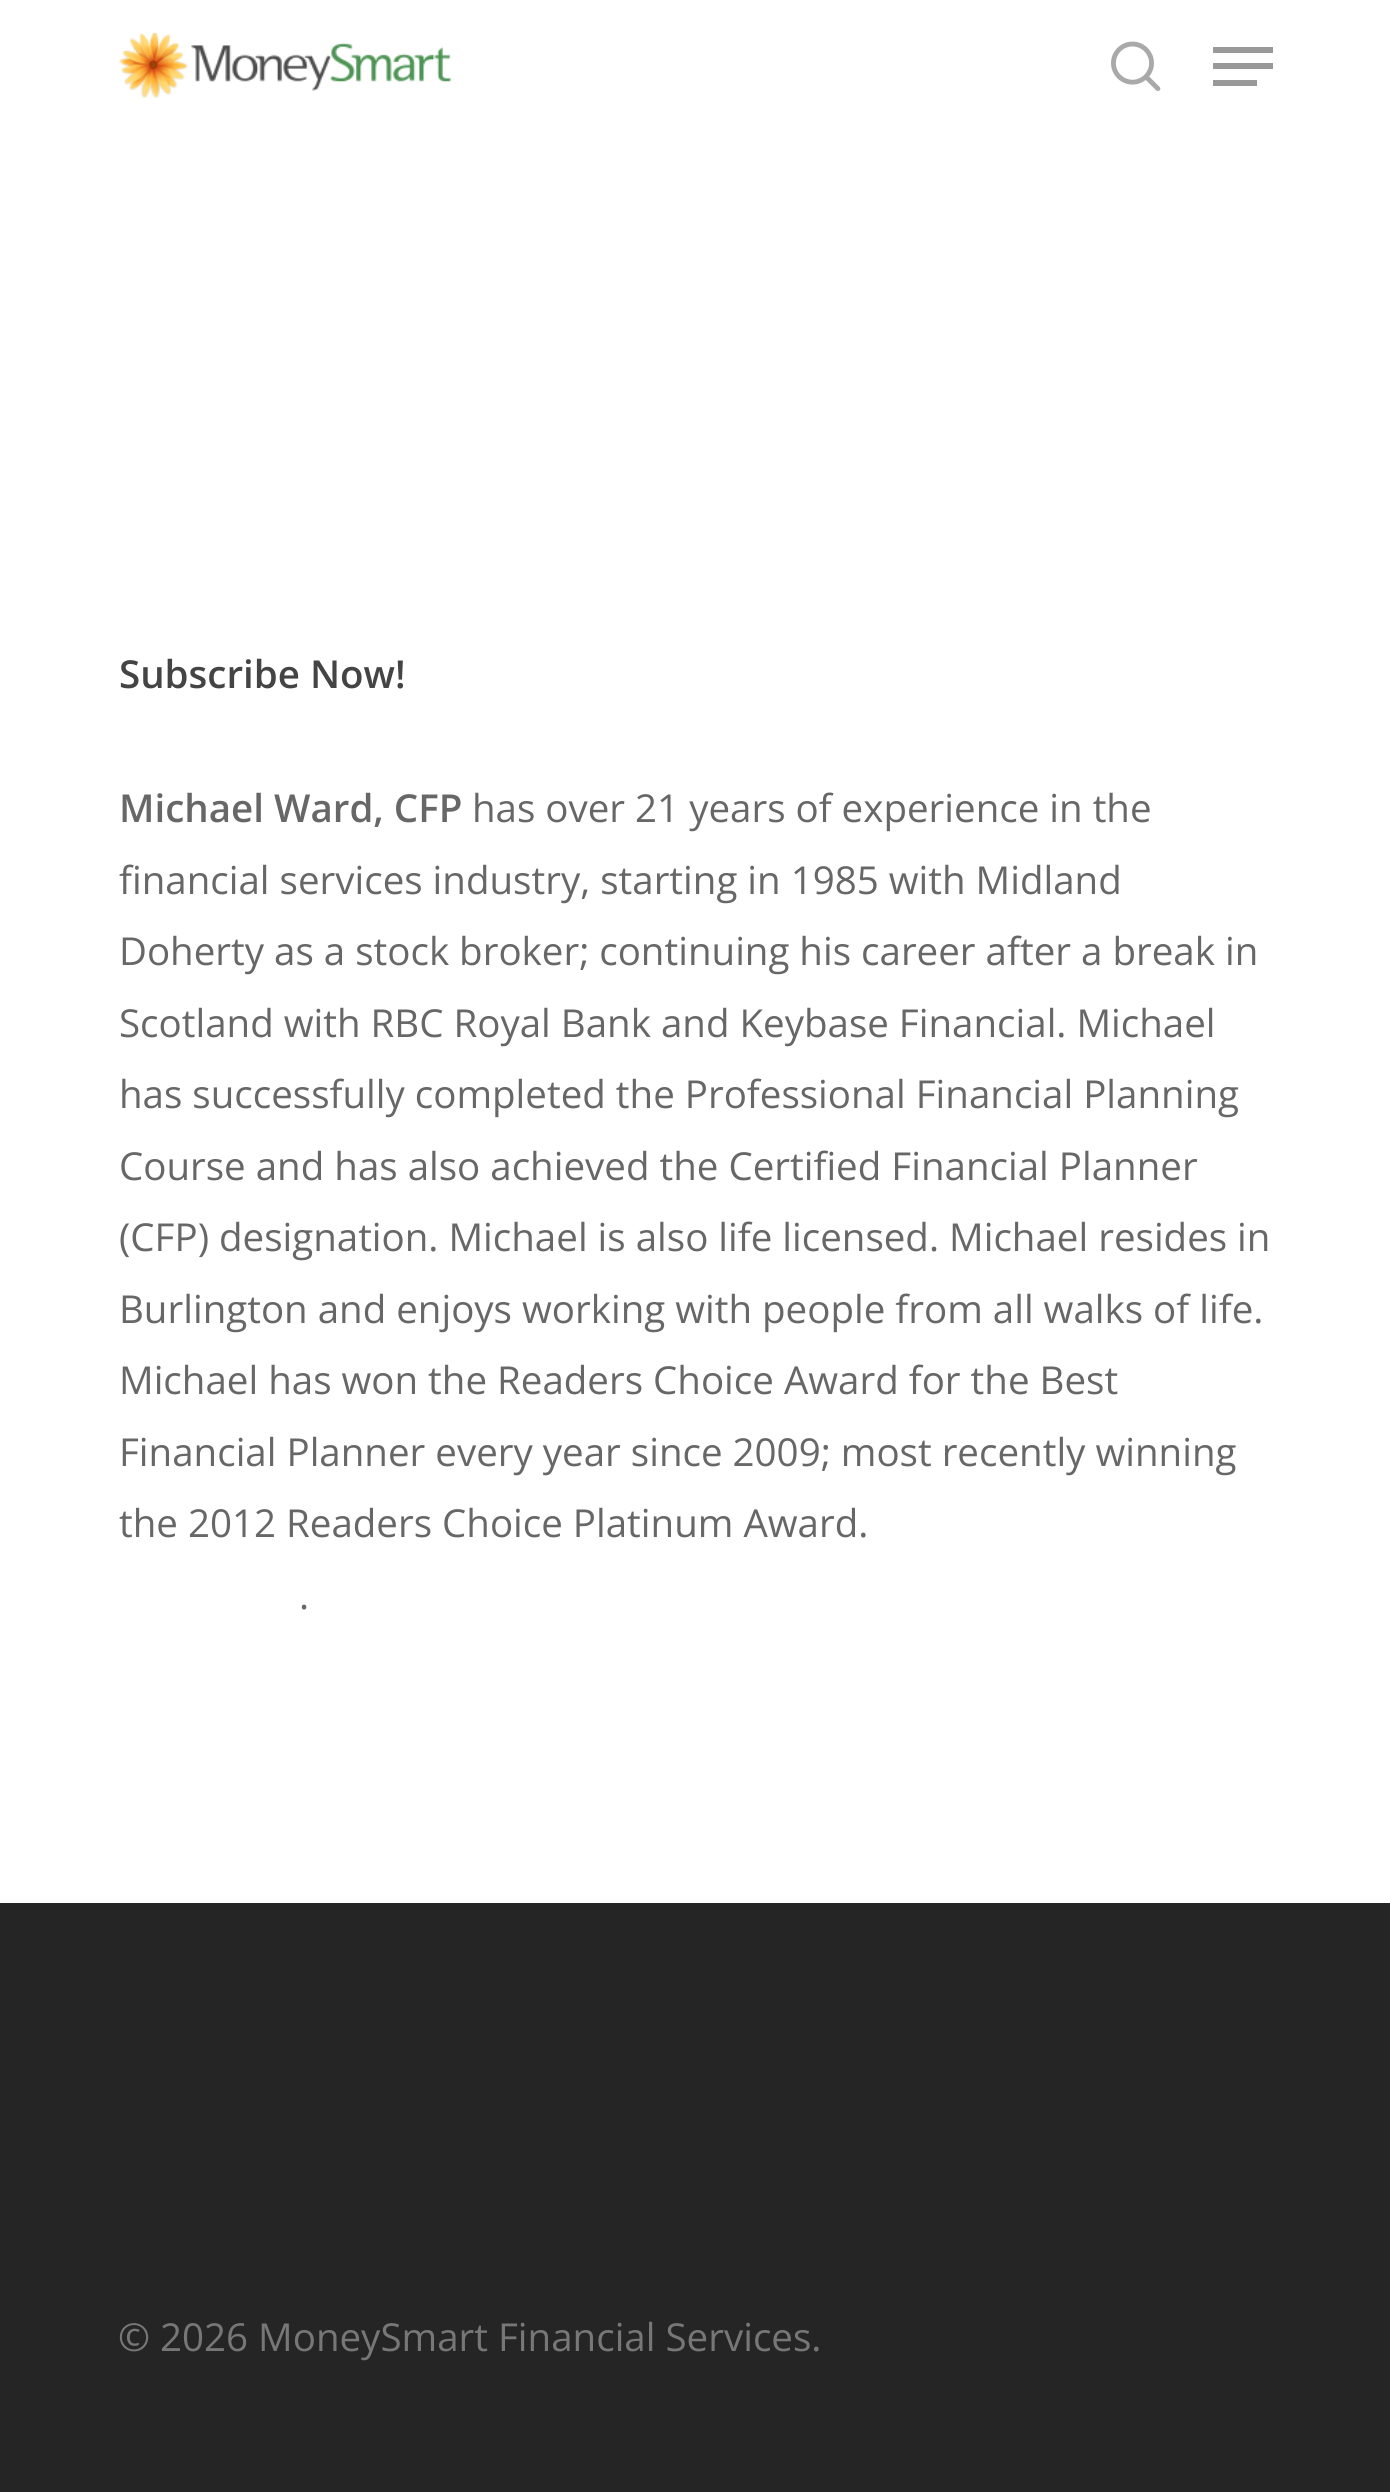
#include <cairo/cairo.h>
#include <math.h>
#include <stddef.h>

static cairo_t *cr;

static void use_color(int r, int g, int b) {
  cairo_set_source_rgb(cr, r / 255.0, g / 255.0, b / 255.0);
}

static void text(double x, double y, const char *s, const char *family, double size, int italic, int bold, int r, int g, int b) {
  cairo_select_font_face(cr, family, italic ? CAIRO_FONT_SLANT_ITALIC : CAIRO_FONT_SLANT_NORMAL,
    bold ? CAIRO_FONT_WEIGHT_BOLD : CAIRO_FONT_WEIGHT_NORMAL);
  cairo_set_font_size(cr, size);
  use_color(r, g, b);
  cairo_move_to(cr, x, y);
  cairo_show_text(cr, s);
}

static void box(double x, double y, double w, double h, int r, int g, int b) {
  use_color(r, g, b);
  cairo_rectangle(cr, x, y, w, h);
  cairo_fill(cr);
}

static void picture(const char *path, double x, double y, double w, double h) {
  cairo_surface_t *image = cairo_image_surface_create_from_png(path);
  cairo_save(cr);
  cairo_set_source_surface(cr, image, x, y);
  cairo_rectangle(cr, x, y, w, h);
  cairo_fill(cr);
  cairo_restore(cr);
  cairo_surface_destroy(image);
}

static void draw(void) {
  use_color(255, 255, 255);
  cairo_paint(cr);
  picture("img_01.png", 119, 33, 332, 65);
  picture("img_02.png", 1111, 41, 50, 50);
  box(1213, 47, 60, 6, 153, 153, 153);
  box(1213, 80, 44, 6, 153, 153, 153);
  box(1213, 63, 60, 6, 153, 153, 153);
  box(0, 1903, 1390, 589, 37, 37, 37);
  text(119, 688, "Subscribe Now!", "Open Sans SemiBold", 38.5, 0, 0, 68, 68, 68);
  text(119, 822, "Michael Ward, CFP", "Open Sans SemiBold", 38.5, 0, 0, 103, 103, 103);
  text(472, 822, "has over 21 years of experience in the", "Open Sans", 38.5, 0, 0, 103, 103, 103);
  text(119, 894, "financial services industry, starting in 1985 with Midland", "Open Sans", 38.5, 0, 0, 103, 103, 103);
  text(119, 965, "Doherty as a stock broker; continuing his career after a break in", "Open Sans", 38.5, 0, 0, 103, 103, 103);
  text(119, 1037, "Scotland with RBC Royal Bank and Keybase Financial. Michael", "Open Sans", 38.5, 0, 0, 103, 103, 103);
  text(119, 1108, "has successfully completed the Professional Financial Planning", "Open Sans", 38.5, 0, 0, 103, 103, 103);
  text(119, 1180, "Course and has also achieved the Certified Financial Planner", "Open Sans", 38.5, 0, 0, 103, 103, 103);
  text(119, 1251, "(CFP) designation. Michael is also life licensed. Michael resides in", "Open Sans", 38.5, 0, 0, 103, 103, 103);
  text(119, 1323, "Burlington and enjoys working with people from all walks of life.", "Open Sans", 38.5, 0, 0, 103, 103, 103);
  text(119, 1394, "Michael has won the Readers Choice Award for the Best", "Open Sans", 38.5, 0, 0, 103, 103, 103);
  text(119, 1466, "Financial Planner every year since 2009; most recently winning", "Open Sans", 38.5, 0, 0, 103, 103, 103);
  text(119, 1537, "the 2012 Readers Choice Platinum Award.", "Open Sans", 38.5, 0, 0, 103, 103, 103);
  text(299, 1609, ".", "Open Sans", 38.5, 0, 0, 103, 103, 103);
  text(118, 2351, "© 2026 MoneySmart Financial Services.", "Open Sans", 38.5, 0, 0, 119, 119, 119);
}

int main(void) {
  cairo_surface_t *surface = cairo_image_surface_create(CAIRO_FORMAT_RGB24, 1390, 2492);
  cr = cairo_create(surface);
  cairo_font_options_t *options = cairo_font_options_create();
  cairo_font_options_set_hint_metrics(options, CAIRO_HINT_METRICS_OFF);
  cairo_font_options_set_hint_style(options, CAIRO_HINT_STYLE_NONE);
  cairo_set_font_options(cr, options);
  cairo_set_miter_limit(cr, 4);
  draw();
  cairo_surface_write_to_png(surface, "out.png");
  cairo_font_options_destroy(options);
  cairo_destroy(cr);
  cairo_surface_destroy(surface);
  return 0;
}
